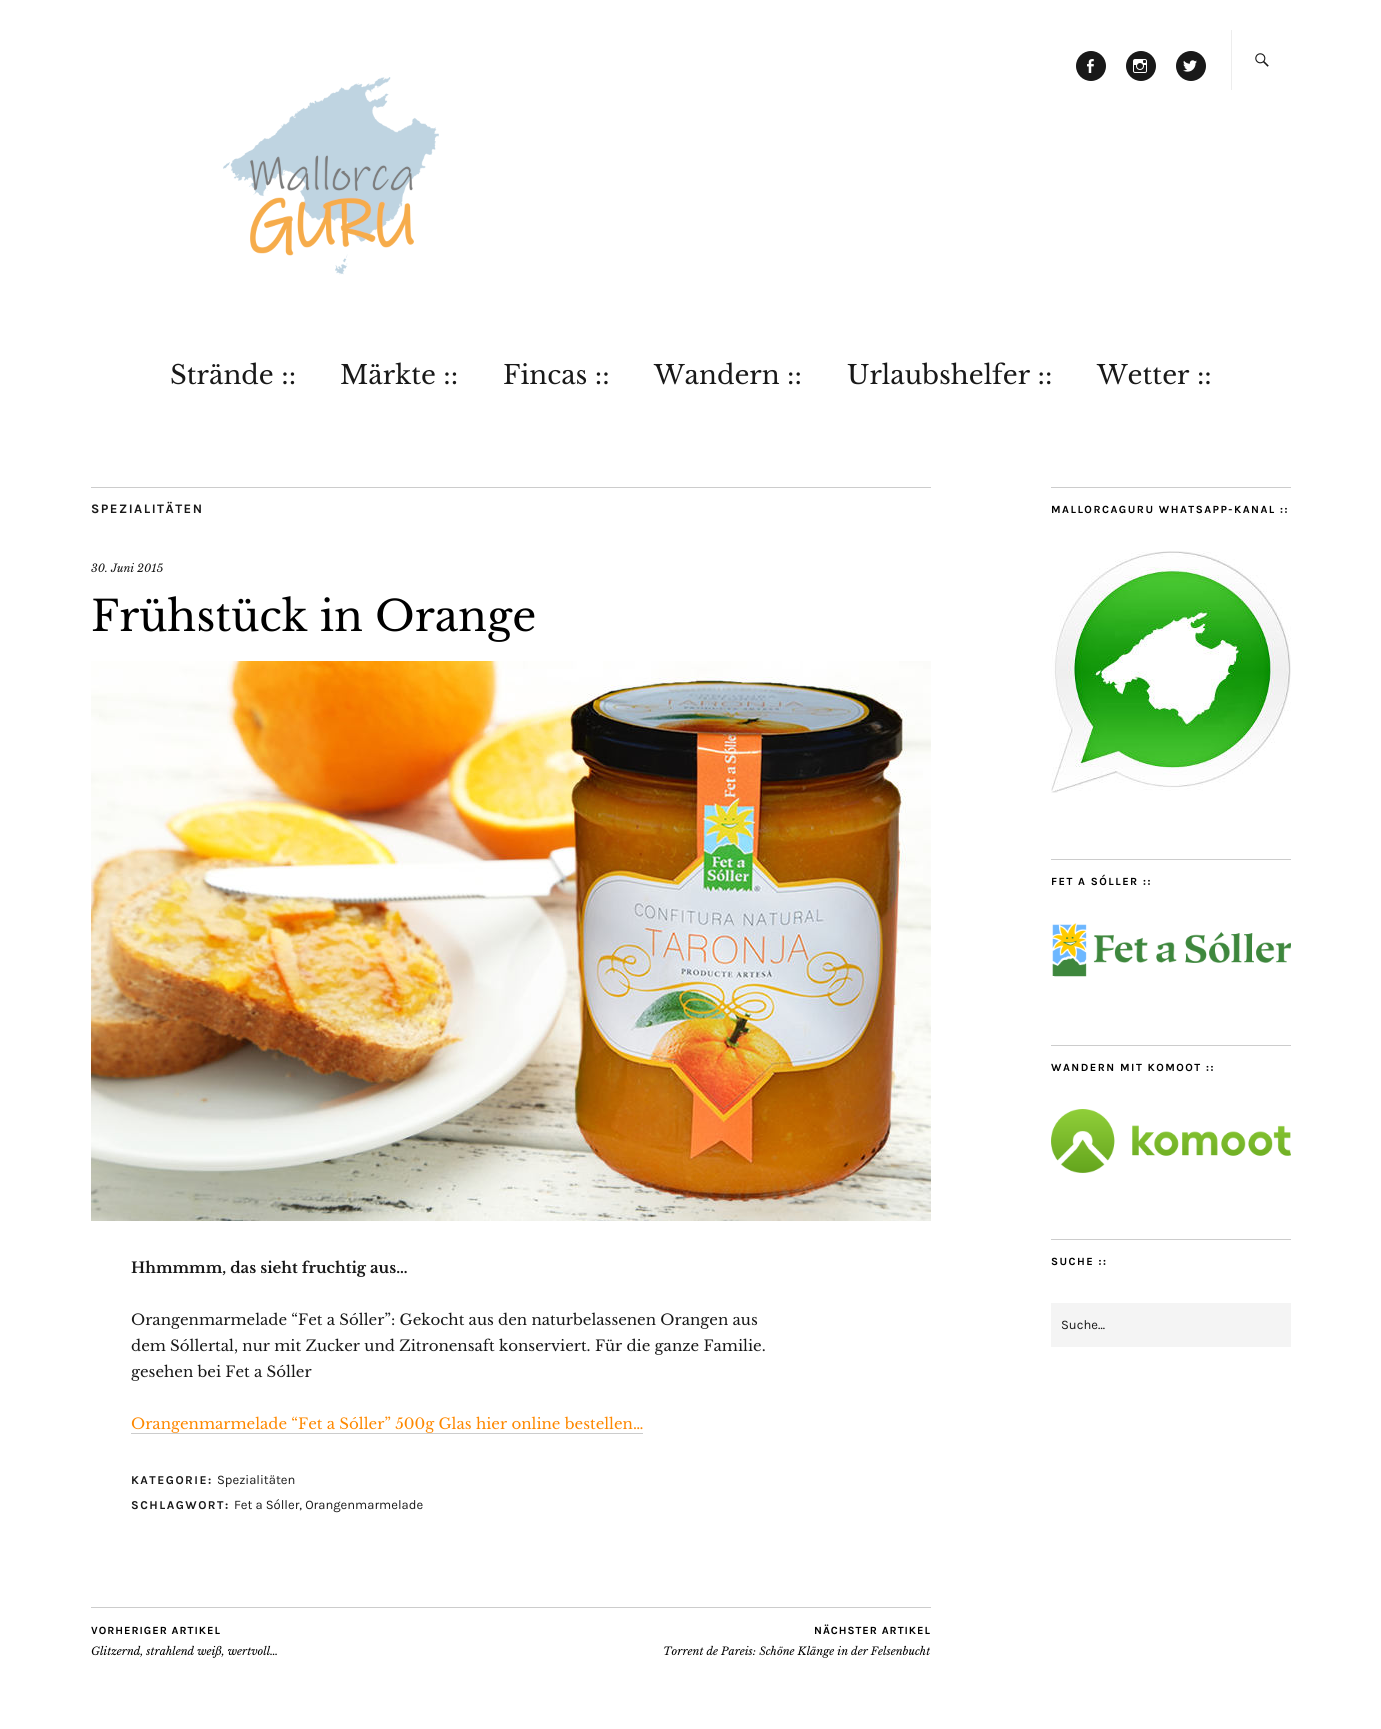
#include <cairo/cairo.h>
#include <math.h>
#include <stddef.h>

static cairo_t *cr;

static void use_color(int r, int g, int b) {
  cairo_set_source_rgb(cr, r / 255.0, g / 255.0, b / 255.0);
}

static void text(double x, double y, const char *s, const char *family, double size, int italic, int bold, int r, int g, int b) {
  cairo_select_font_face(cr, family, italic ? CAIRO_FONT_SLANT_ITALIC : CAIRO_FONT_SLANT_NORMAL,
    bold ? CAIRO_FONT_WEIGHT_BOLD : CAIRO_FONT_WEIGHT_NORMAL);
  cairo_set_font_size(cr, size);
  use_color(r, g, b);
  cairo_move_to(cr, x, y);
  cairo_show_text(cr, s);
}

static void spaced_text(double x, double y, const char *s, double letter, double word) {
  cairo_move_to(cr, x, y);
  while (*s) {
    char ch[5] = {0};
    int n = 0;
    do ch[n++] = *s++; while ((*s & 0xC0) == 0x80);
    cairo_show_text(cr, ch);
    cairo_rel_move_to(cr, letter + word * (*ch == ' '), 0);
  }
}

static void box(double x, double y, double w, double h, int r, int g, int b) {
  use_color(r, g, b);
  cairo_rectangle(cr, x, y, w, h);
  cairo_fill(cr);
}

static void picture(const char *path, double x, double y, double w, double h) {
  cairo_surface_t *image = cairo_image_surface_create_from_png(path);
  cairo_save(cr);
  cairo_set_source_surface(cr, image, x, y);
  cairo_rectangle(cr, x, y, w, h);
  cairo_fill(cr);
  cairo_restore(cr);
  cairo_surface_destroy(image);
}

static void draw(void) {
  use_color(255, 255, 255);
  cairo_paint(cr);
  use_color(25, 25, 25);
  cairo_arc(cr, 1091, 66, 15, 0, 2 * M_PI);
  cairo_fill(cr);
  picture("img_01.png", 1087, 59, 7, 14);
  cairo_arc(cr, 1141, 66, 15, 0, 2 * M_PI);
  cairo_fill(cr);
  picture("img_02.png", 1133, 59, 14, 14);
  cairo_arc(cr, 1191, 66, 15, 0, 2 * M_PI);
  cairo_fill(cr);
  picture("img_03.png", 1183, 60, 14, 12);
  picture("img_04.png", 223, 77, 216, 198);
  box(1231, 30, 1, 60, 237, 237, 237);
  picture("img_05.png", 1255, 53, 14, 14);
  box(91, 487, 840, 1, 204, 204, 204);
  picture("img_06.png", 91, 661, 840, 560);
  box(131, 1433, 512, 1, 204, 204, 204);
  box(91, 1607, 840, 1, 204, 204, 204);
  box(1051, 487, 240, 1, 204, 204, 204);
  box(1051, 859, 240, 1, 204, 204, 204);
  picture("img_07.png", 1051, 551, 240, 242);
  box(1051, 1045, 240, 1, 204, 204, 204);
  picture("img_08.png", 1052, 923, 239, 54);
  box(1051, 1239, 240, 1, 204, 204, 204);
  picture("img_09.png", 1051, 1109, 240, 64);
  box(1051, 1303, 240, 44, 244, 244, 244);
  text(170, 384, "Strände ::", "Libre Baskerville", 26, 0, 0, 25, 25, 25);
  text(340, 384, "Märkte ::", "Libre Baskerville", 26, 0, 0, 25, 25, 25);
  text(503, 384, "Fincas ::", "Libre Baskerville", 26, 0, 0, 25, 25, 25);
  text(654, 384, "Wandern ::", "Libre Baskerville", 26, 0, 0, 25, 25, 25);
  text(847, 384, "Urlaubshelfer ::", "Libre Baskerville", 26, 0, 0, 25, 25, 25);
  text(1097, 384, "Wetter ::", "Libre Baskerville", 26, 0, 0, 25, 25, 25);
  cairo_select_font_face(cr, "Karla", CAIRO_FONT_SLANT_NORMAL, CAIRO_FONT_WEIGHT_BOLD);
  cairo_set_font_size(cr, 13);
  spaced_text(91, 513, "SPEZIALITÄTEN", 1.5, 0);
  text(91, 572, "30. Juni 2015", "Libre Baskerville", 11, 1, 0, 25, 25, 25);
  text(91, 631, "Frühstück in Orange", "Libre Baskerville", 42, 0, 0, 0, 0, 0);
  text(131, 1273, "Hhmmmm, das sieht fruchtig aus…", "Libre Baskerville", 15, 0, 1, 25, 25, 25);
  text(131, 1325, "Orangenmarmelade “Fet a Sóller”: Gekocht aus den naturbelassenen Orangen aus", "Libre Baskerville", 15, 0, 0, 25, 25, 25);
  text(131, 1351, "dem Sóllertal, nur mit Zucker und Zitronensaft konserviert. Für die ganze Familie.", "Libre Baskerville", 15, 0, 0, 25, 25, 25);
  text(131, 1377, "gesehen bei Fet a Sóller", "Libre Baskerville", 15, 0, 0, 25, 25, 25);
  text(131, 1429, "Orangenmarmelade “Fet a Sóller” 500g Glas hier online bestellen…", "Libre Baskerville", 15, 0, 0, 254, 136, 0);
  cairo_select_font_face(cr, "Karla", CAIRO_FONT_SLANT_NORMAL, CAIRO_FONT_WEIGHT_BOLD);
  cairo_set_font_size(cr, 12);
  use_color(25, 25, 25);
  spaced_text(131, 1484, "KATEGORIE:", 1.5, 0);
  text(217, 1484, "Spezialitäten", "Karla", 13, 0, 0, 25, 25, 25);
  cairo_select_font_face(cr, "Karla", CAIRO_FONT_SLANT_NORMAL, CAIRO_FONT_WEIGHT_BOLD);
  cairo_set_font_size(cr, 12);
  spaced_text(131, 1509, "SCHLAGWORT:", 1.5, 0);
  text(234, 1509, "Fet a Sóller, Orangenmarmelade", "Karla", 13, 0, 0, 25, 25, 25);
  cairo_select_font_face(cr, "Karla", CAIRO_FONT_SLANT_NORMAL, CAIRO_FONT_WEIGHT_BOLD);
  cairo_set_font_size(cr, 11);
  use_color(0, 0, 0);
  spaced_text(91, 1634, "VORHERIGER ARTIKEL", 1, 0);
  text(91, 1655, "Glitzernd, strahlend weiß, wertvoll…", "Libre Baskerville", 11, 1, 0, 0, 0, 0);
  cairo_select_font_face(cr, "Karla", CAIRO_FONT_SLANT_NORMAL, CAIRO_FONT_WEIGHT_BOLD);
  spaced_text(814, 1634, "NÄCHSTER ARTIKEL", 1, 0);
  text(663, 1655, "Torrent de Pareis: Schöne Klänge in der Felsenbucht", "Libre Baskerville", 11, 1, 0, 0, 0, 0);
  cairo_select_font_face(cr, "Karla", CAIRO_FONT_SLANT_NORMAL, CAIRO_FONT_WEIGHT_BOLD);
  spaced_text(1051, 513, "MALLORCAGURU WHATSAPP-KANAL ::", 1.5, 0);
  spaced_text(1051, 885, "FET A SÓLLER ::", 1.5, 0);
  spaced_text(1051, 1071, "WANDERN MIT KOMOOT ::", 1.5, 0);
  spaced_text(1051, 1265, "SUCHE ::", 1.5, 0);
  text(1061, 1329, "Suche…", "Karla", 13, 0, 0, 25, 25, 25);
}

int main(void) {
  cairo_surface_t *surface = cairo_image_surface_create(CAIRO_FORMAT_RGB24, 1381, 1729);
  cr = cairo_create(surface);
  cairo_font_options_t *options = cairo_font_options_create();
  cairo_font_options_set_hint_metrics(options, CAIRO_HINT_METRICS_OFF);
  cairo_font_options_set_hint_style(options, CAIRO_HINT_STYLE_NONE);
  cairo_set_font_options(cr, options);
  cairo_set_miter_limit(cr, 4);
  draw();
  cairo_surface_write_to_png(surface, "out.png");
  cairo_font_options_destroy(options);
  cairo_destroy(cr);
  cairo_surface_destroy(surface);
  return 0;
}
